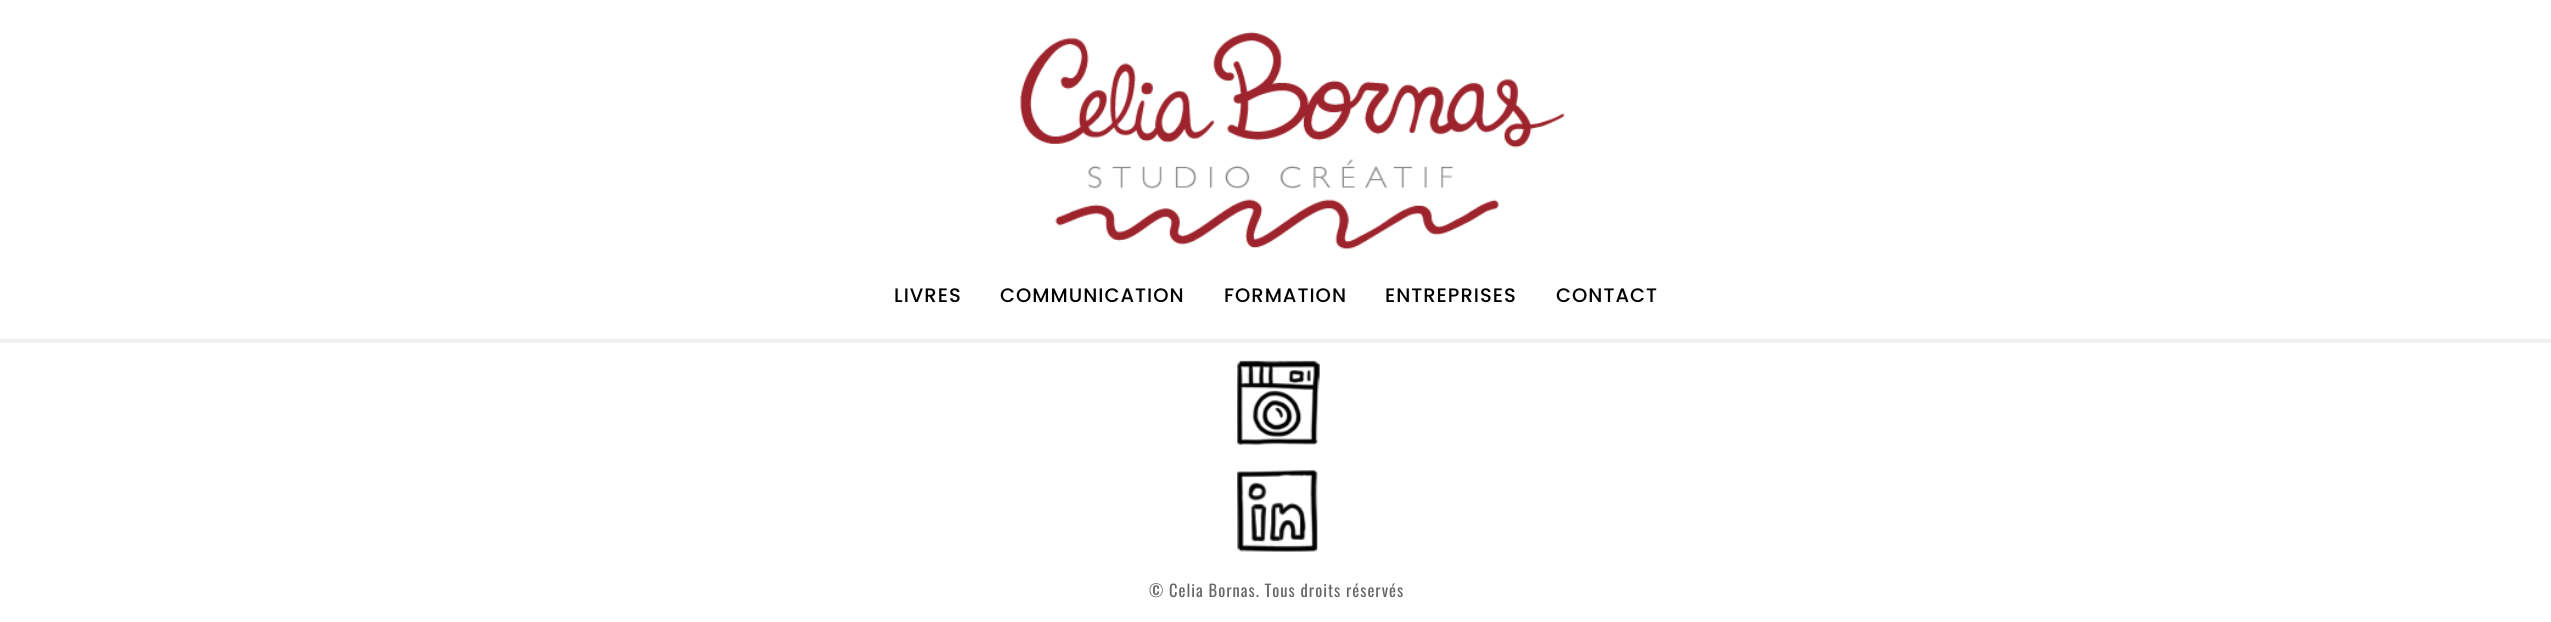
#include <cairo/cairo.h>
#include <math.h>
#include <stddef.h>

static cairo_t *cr;

static void use_color(int r, int g, int b) {
  cairo_set_source_rgb(cr, r / 255.0, g / 255.0, b / 255.0);
}

static void spaced_text(double x, double y, const char *s, double letter, double word) {
  cairo_move_to(cr, x, y);
  while (*s) {
    char ch[5] = {0};
    int n = 0;
    do ch[n++] = *s++; while ((*s & 0xC0) == 0x80);
    cairo_show_text(cr, ch);
    cairo_rel_move_to(cr, letter + word * (*ch == ' '), 0);
  }
}

static void box(double x, double y, double w, double h, int r, int g, int b) {
  use_color(r, g, b);
  cairo_rectangle(cr, x, y, w, h);
  cairo_fill(cr);
}

static void picture(const char *path, double x, double y, double w, double h) {
  cairo_surface_t *image = cairo_image_surface_create_from_png(path);
  cairo_save(cr);
  cairo_set_source_surface(cr, image, x, y);
  cairo_rectangle(cr, x, y, w, h);
  cairo_fill(cr);
  cairo_restore(cr);
  cairo_surface_destroy(image);
}

static void draw(void) {
  use_color(255, 255, 255);
  cairo_paint(cr);
  picture("img_01.png", 1020, 31, 545, 218);
  box(0, 339, 2551, 4, 241, 241, 241);
  picture("img_02.png", 1237, 360, 83, 85);
  picture("img_03.png", 1237, 470, 81, 82);
  cairo_select_font_face(cr, "Poppins Medium", CAIRO_FONT_SLANT_NORMAL, CAIRO_FONT_WEIGHT_NORMAL);
  cairo_set_font_size(cr, 19.5);
  use_color(0, 0, 0);
  spaced_text(894, 302, "LIVRES", 1, 0);
  spaced_text(1000, 302, "COMMUNICATION", 1, 0);
  spaced_text(1224, 302, "FORMATION", 1, 0);
  spaced_text(1385, 302, "ENTREPRISES", 1, 0);
  spaced_text(1556, 302, "CONTACT", 1, 0);
  cairo_select_font_face(cr, "Oswald", CAIRO_FONT_SLANT_NORMAL, CAIRO_FONT_WEIGHT_NORMAL);
  cairo_set_font_size(cr, 16.5);
  use_color(102, 102, 102);
  spaced_text(1149, 597, "© Celia Bornas. Tous droits réservés", 1, 0);
}

int main(void) {
  cairo_surface_t *surface = cairo_image_surface_create(CAIRO_FORMAT_RGB24, 2551, 622);
  cr = cairo_create(surface);
  cairo_font_options_t *options = cairo_font_options_create();
  cairo_font_options_set_hint_metrics(options, CAIRO_HINT_METRICS_OFF);
  cairo_font_options_set_hint_style(options, CAIRO_HINT_STYLE_NONE);
  cairo_set_font_options(cr, options);
  cairo_set_miter_limit(cr, 4);
  draw();
  cairo_surface_write_to_png(surface, "out.png");
  cairo_font_options_destroy(options);
  cairo_destroy(cr);
  cairo_surface_destroy(surface);
  return 0;
}
